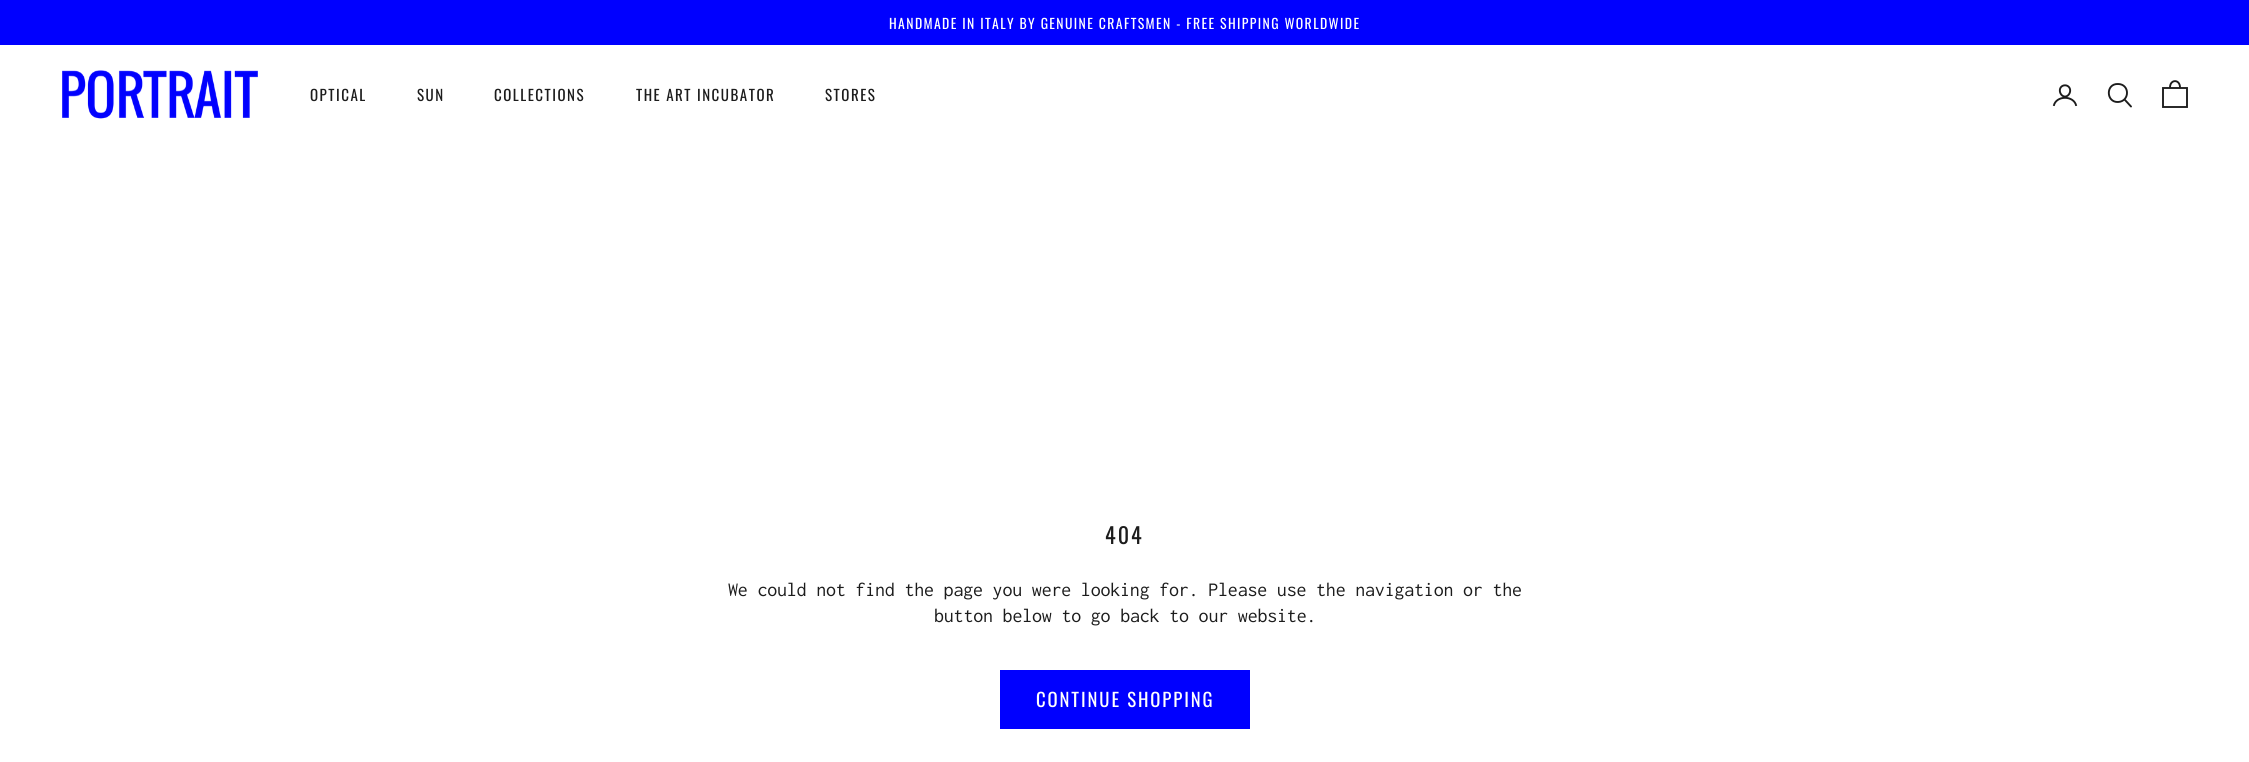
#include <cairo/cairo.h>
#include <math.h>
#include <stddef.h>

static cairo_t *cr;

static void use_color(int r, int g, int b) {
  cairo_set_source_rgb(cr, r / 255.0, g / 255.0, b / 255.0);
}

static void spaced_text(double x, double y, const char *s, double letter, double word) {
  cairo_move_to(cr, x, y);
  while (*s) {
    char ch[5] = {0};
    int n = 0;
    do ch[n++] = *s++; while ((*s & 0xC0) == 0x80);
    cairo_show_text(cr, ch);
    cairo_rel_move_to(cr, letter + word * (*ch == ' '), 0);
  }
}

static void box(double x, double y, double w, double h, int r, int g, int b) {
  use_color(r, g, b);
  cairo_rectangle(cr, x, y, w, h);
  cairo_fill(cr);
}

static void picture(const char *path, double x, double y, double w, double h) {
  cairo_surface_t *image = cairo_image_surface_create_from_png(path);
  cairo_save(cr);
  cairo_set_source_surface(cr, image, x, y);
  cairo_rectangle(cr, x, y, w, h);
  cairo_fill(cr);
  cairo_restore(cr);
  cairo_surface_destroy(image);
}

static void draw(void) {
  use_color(255, 255, 255);
  cairo_paint(cr);
  box(0, 0, 2249, 45, 0, 0, 255);
  picture("img_01.png", 62, 70, 196, 49);
  picture("img_02.png", 2052, 84, 26, 23);
  cairo_new_path(cr);
  cairo_move_to(cr, 2118, 84);
  cairo_curve_to(cr, 2105.5, 83.5, 2106, 102.5, 2118, 102);
  cairo_curve_to(cr, 2130, 101.5, 2130, 84, 2118, 84);
  cairo_close_path(cr);
  use_color(28, 28, 28);
  cairo_set_line_width(cr, 1.9);
  cairo_stroke(cr);
  cairo_new_path(cr);
  cairo_move_to(cr, 2125, 100);
  cairo_line_to(cr, 2131, 106.5);
  cairo_set_line_cap(cr, CAIRO_LINE_CAP_ROUND);
  cairo_stroke(cr);
  cairo_new_path(cr);
  cairo_move_to(cr, 2187, 107);
  cairo_line_to(cr, 2187, 88);
  cairo_line_to(cr, 2163, 88);
  cairo_line_to(cr, 2163, 107);
  cairo_close_path(cr);
  cairo_move_to(cr, 2170, 87.5);
  cairo_curve_to(cr, 2170, 79, 2180, 79, 2180, 87.5);
  cairo_set_line_cap(cr, CAIRO_LINE_CAP_BUTT);
  cairo_stroke(cr);
  use_color(0, 0, 255);
  cairo_rectangle(cr, 1000.5, 670.5, 249, 58);
  cairo_fill_preserve(cr);
  cairo_set_line_width(cr, 1);
  cairo_stroke(cr);
  cairo_select_font_face(cr, "Oswald", CAIRO_FONT_SLANT_NORMAL, CAIRO_FONT_WEIGHT_NORMAL);
  cairo_set_font_size(cr, 13.75);
  use_color(255, 255, 255);
  spaced_text(889, 29, "HANDMADE IN ITALY BY GENUINE CRAFTSMEN - FREE SHIPPING WORLDWIDE", 1.38, 0);
  cairo_set_font_size(cr, 15);
  use_color(28, 28, 28);
  spaced_text(310, 101, "OPTICAL", 1.5, 0);
  spaced_text(417, 101, "SUN", 1.5, 0);
  spaced_text(494, 101, "COLLECTIONS", 1.5, 0);
  spaced_text(636, 101, "THE ART INCUBATOR", 1.5, 0);
  spaced_text(825, 101, "STORES", 1.5, 0);
  cairo_set_font_size(cr, 22);
  spaced_text(1105, 544, "404", 2, 0);
  cairo_select_font_face(cr, "Inconsolata", CAIRO_FONT_SLANT_NORMAL, CAIRO_FONT_WEIGHT_NORMAL);
  cairo_set_font_size(cr, 20);
  spaced_text(728, 596, "We could not find the page you were looking for. Please use the navigation or the", -0.2, 0);
  spaced_text(934, 622, "button below to go back to our website.", -0.2, 0);
  cairo_select_font_face(cr, "Oswald", CAIRO_FONT_SLANT_NORMAL, CAIRO_FONT_WEIGHT_NORMAL);
  cairo_set_font_size(cr, 18.75);
  use_color(255, 255, 255);
  spaced_text(1036, 707, "CONTINUE SHOPPING", 1.9, 0);
}

int main(void) {
  cairo_surface_t *surface = cairo_image_surface_create(CAIRO_FORMAT_RGB24, 2249, 762);
  cr = cairo_create(surface);
  cairo_font_options_t *options = cairo_font_options_create();
  cairo_font_options_set_hint_metrics(options, CAIRO_HINT_METRICS_OFF);
  cairo_font_options_set_hint_style(options, CAIRO_HINT_STYLE_NONE);
  cairo_set_font_options(cr, options);
  cairo_set_miter_limit(cr, 4);
  draw();
  cairo_surface_write_to_png(surface, "out.png");
  cairo_font_options_destroy(options);
  cairo_destroy(cr);
  cairo_surface_destroy(surface);
  return 0;
}
